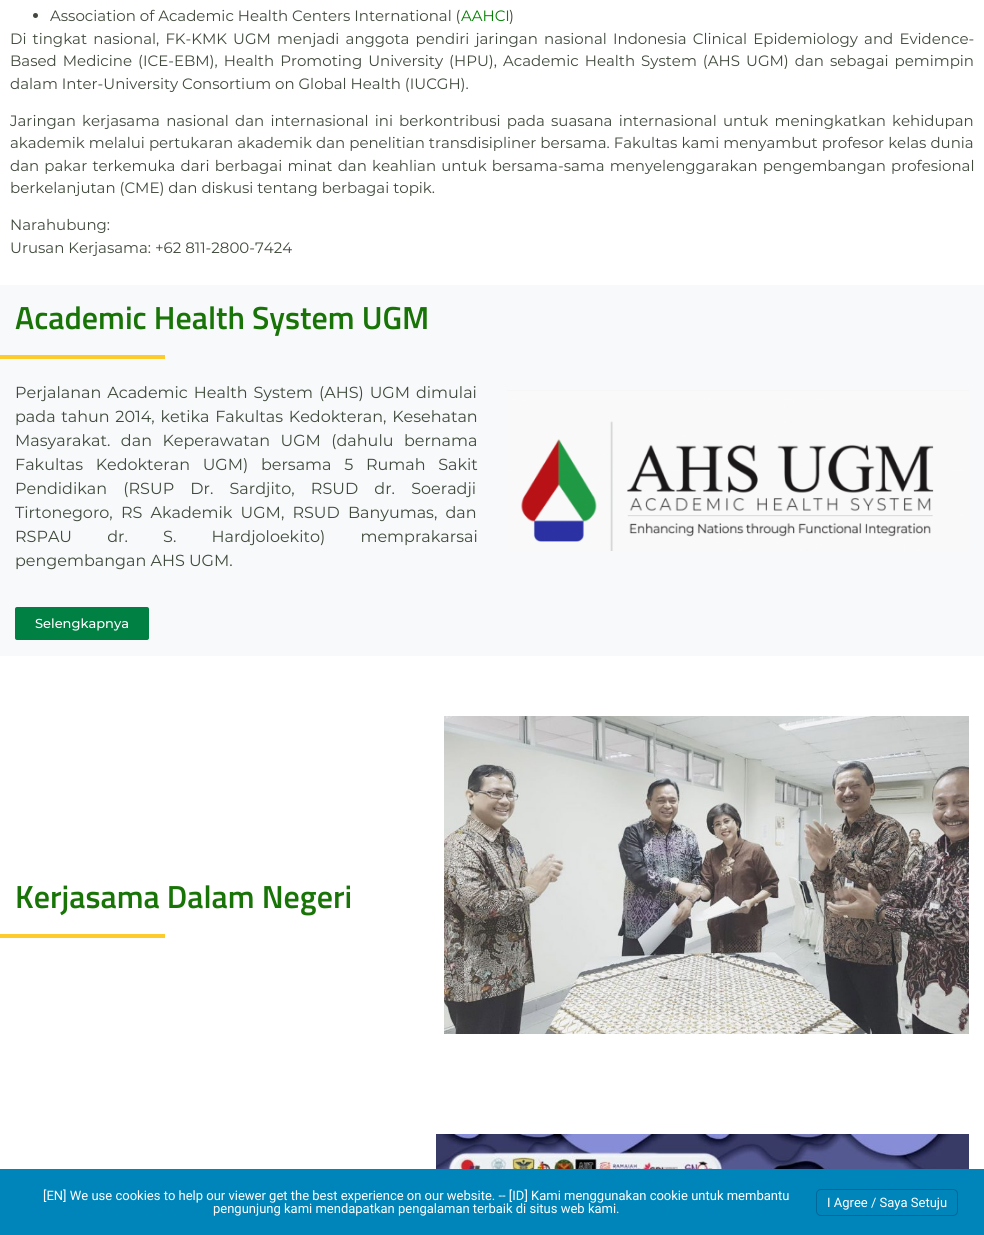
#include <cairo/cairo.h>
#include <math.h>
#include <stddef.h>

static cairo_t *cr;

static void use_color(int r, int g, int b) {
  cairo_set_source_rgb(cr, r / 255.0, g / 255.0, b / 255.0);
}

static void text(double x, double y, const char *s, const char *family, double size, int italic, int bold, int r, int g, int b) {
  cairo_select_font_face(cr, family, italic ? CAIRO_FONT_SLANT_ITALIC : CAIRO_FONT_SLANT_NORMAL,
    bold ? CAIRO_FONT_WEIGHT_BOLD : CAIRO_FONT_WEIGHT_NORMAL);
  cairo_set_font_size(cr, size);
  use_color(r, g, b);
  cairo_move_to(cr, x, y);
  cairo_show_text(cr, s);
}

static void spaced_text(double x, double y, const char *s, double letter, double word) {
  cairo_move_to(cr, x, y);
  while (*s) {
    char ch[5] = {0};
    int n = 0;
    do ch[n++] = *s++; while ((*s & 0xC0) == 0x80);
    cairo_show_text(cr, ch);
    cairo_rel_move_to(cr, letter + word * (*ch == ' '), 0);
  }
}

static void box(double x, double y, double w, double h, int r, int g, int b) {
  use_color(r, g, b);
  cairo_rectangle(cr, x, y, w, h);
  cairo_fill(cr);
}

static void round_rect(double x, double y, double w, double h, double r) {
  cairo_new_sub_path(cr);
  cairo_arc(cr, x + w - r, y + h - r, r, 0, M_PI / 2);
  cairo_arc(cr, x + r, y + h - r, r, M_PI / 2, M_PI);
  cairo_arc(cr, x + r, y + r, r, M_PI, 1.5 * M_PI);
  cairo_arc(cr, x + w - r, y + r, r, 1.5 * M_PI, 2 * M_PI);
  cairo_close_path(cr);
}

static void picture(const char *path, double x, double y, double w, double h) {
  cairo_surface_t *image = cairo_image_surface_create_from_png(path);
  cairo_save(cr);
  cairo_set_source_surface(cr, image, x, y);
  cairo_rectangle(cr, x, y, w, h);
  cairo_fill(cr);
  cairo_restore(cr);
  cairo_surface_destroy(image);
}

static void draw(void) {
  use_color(255, 255, 255);
  cairo_paint(cr);
  use_color(64, 74, 60);
  cairo_arc(cr, 35.5, 15.5, 2.5, 0, 2 * M_PI);
  cairo_fill(cr);
  box(0, 285, 984, 371, 248, 249, 251);
  box(0, 355, 165, 4, 253, 203, 44);
  use_color(0, 128, 67);
  round_rect(15, 607, 134, 33, 2);
  cairo_fill(cr);
  picture("img_01.png", 507, 390, 462, 161);
  box(0, 934, 165, 4, 253, 203, 44);
  picture("img_02.png", 444, 716, 525, 318);
  picture("img_03.png", 436, 1134, 533, 35);
  box(0, 1169, 984, 66, 0, 133, 186);
  round_rect(816.5, 1189.5, 141, 26, 4.5);
  use_color(0, 103, 153);
  cairo_set_line_width(cr, 1);
  cairo_stroke(cr);
  text(50, 21, "Association of Academic Health Centers International (", "Montserrat", 15, 0, 0, 64, 74, 60);
  text(461, 21, "AAHCI", "Montserrat", 15, 0, 0, 0, 128, 0);
  text(509, 21, ")", "Montserrat", 15, 0, 0, 64, 74, 60);
  spaced_text(10, 44, "Di tingkat nasional, FK-KMK UGM menjadi anggota pendiri jaringan nasional Indonesia Clinical Epidemiology and Evidence-", 0, 2.25);
  spaced_text(10, 66, "Based Medicine (ICE-EBM), Health Promoting University (HPU), Academic Health System (AHS UGM) dan sebagai pemimpin", 0, 2.1);
  text(10, 89, "dalam Inter-University Consortium on Global Health (IUCGH).", "Montserrat", 15, 0, 0, 64, 74, 60);
  spaced_text(10, 126, "Jaringan kerjasama nasional dan internasional ini berkontribusi pada suasana internasional untuk meningkatkan kehidupan", 0, 2.25);
  spaced_text(10, 148, "akademik melalui pertukaran akademik dan penelitian transdisipliner bersama. Fakultas kami menyambut profesor kelas dunia", 0, 0.1);
  spaced_text(10, 171, "dan pakar terkemuka dari berbagai minat dan keahlian untuk bersama-sama menyelenggarakan pengembangan profesional", 0, 1.25);
  text(10, 193, "berkelanjutan (CME) dan diskusi tentang berbagai topik.", "Montserrat", 15, 0, 0, 64, 74, 60);
  text(10, 230, "Narahubung:", "Montserrat", 15, 0, 0, 64, 74, 60);
  text(10, 253, "Urusan Kerjasama: +62 811-2800-7424", "Montserrat", 15, 0, 0, 64, 74, 60);
  text(15, 329, "Academic Health System UGM", "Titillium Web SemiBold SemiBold", 32, 0, 0, 24, 116, 7);
  cairo_select_font_face(cr, "Montserrat", CAIRO_FONT_SLANT_NORMAL, CAIRO_FONT_WEIGHT_NORMAL);
  cairo_set_font_size(cr, 16);
  use_color(64, 74, 60);
  spaced_text(15, 398, "Perjalanan Academic Health System (AHS) UGM dimulai", 0, 1.75);
  spaced_text(15, 422, "pada tahun 2014, ketika Fakultas Kedokteran, Kesehatan", 0, 1.5);
  spaced_text(15, 446, "Masyarakat. dan Keperawatan UGM (dahulu bernama", 0, 6.25);
  spaced_text(15, 470, "Fakultas Kedokteran UGM) bersama 5 Rumah Sakit", 0, 8.5);
  spaced_text(15, 494, "Pendidikan (RSUP Dr. Sardjito, RSUD dr. Soeradji", 0, 12);
  spaced_text(15, 518, "Tirtonegoro, RS Akademik UGM, RSUD Banyumas, dan", 0, 4);
  spaced_text(15, 542, "RSPAU dr. S. Hardjoloekito) memprakarsai", 0, 31);
  text(15, 566, "pengembangan AHS UGM.", "Montserrat", 16, 0, 0, 64, 74, 60);
  text(35, 628, "Selengkapnya", "Montserrat Medium", 13, 0, 0, 255, 255, 255);
  text(15, 908, "Kerjasama Dalam Negeri", "Titillium Web SemiBold SemiBold", 32, 0, 0, 24, 116, 7);
  text(43, 1200, "[EN] We use cookies to help our viewer get the best experience on our website. -- [ID] Kami menggunakan cookie untuk membantu", "Roboto", 13, 0, 0, 255, 255, 255);
  text(213, 1213, "pengunjung kami mendapatkan pengalaman terbaik di situs web kami.", "Roboto", 13, 0, 0, 255, 255, 255);
  text(827, 1207, "I Agree / Saya Setuju", "Roboto", 13, 0, 0, 255, 255, 255);
}

int main(void) {
  cairo_surface_t *surface = cairo_image_surface_create(CAIRO_FORMAT_RGB24, 984, 1235);
  cr = cairo_create(surface);
  cairo_font_options_t *options = cairo_font_options_create();
  cairo_font_options_set_hint_metrics(options, CAIRO_HINT_METRICS_OFF);
  cairo_font_options_set_hint_style(options, CAIRO_HINT_STYLE_NONE);
  cairo_set_font_options(cr, options);
  cairo_set_miter_limit(cr, 4);
  draw();
  cairo_surface_write_to_png(surface, "out.png");
  cairo_font_options_destroy(options);
  cairo_destroy(cr);
  cairo_surface_destroy(surface);
  return 0;
}
